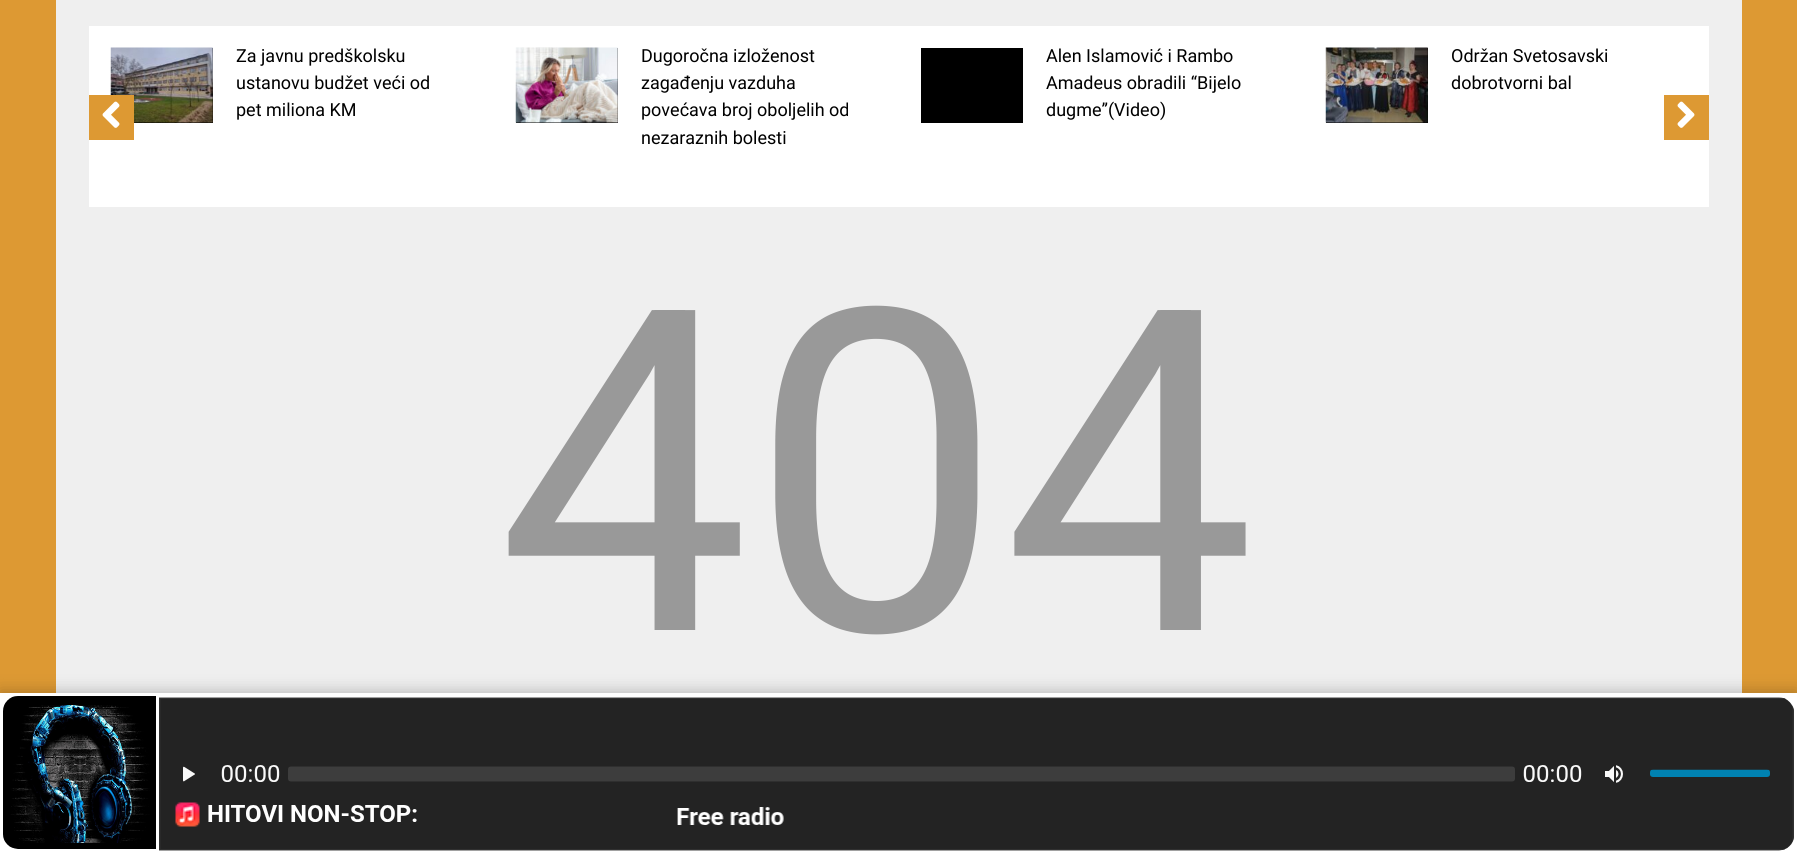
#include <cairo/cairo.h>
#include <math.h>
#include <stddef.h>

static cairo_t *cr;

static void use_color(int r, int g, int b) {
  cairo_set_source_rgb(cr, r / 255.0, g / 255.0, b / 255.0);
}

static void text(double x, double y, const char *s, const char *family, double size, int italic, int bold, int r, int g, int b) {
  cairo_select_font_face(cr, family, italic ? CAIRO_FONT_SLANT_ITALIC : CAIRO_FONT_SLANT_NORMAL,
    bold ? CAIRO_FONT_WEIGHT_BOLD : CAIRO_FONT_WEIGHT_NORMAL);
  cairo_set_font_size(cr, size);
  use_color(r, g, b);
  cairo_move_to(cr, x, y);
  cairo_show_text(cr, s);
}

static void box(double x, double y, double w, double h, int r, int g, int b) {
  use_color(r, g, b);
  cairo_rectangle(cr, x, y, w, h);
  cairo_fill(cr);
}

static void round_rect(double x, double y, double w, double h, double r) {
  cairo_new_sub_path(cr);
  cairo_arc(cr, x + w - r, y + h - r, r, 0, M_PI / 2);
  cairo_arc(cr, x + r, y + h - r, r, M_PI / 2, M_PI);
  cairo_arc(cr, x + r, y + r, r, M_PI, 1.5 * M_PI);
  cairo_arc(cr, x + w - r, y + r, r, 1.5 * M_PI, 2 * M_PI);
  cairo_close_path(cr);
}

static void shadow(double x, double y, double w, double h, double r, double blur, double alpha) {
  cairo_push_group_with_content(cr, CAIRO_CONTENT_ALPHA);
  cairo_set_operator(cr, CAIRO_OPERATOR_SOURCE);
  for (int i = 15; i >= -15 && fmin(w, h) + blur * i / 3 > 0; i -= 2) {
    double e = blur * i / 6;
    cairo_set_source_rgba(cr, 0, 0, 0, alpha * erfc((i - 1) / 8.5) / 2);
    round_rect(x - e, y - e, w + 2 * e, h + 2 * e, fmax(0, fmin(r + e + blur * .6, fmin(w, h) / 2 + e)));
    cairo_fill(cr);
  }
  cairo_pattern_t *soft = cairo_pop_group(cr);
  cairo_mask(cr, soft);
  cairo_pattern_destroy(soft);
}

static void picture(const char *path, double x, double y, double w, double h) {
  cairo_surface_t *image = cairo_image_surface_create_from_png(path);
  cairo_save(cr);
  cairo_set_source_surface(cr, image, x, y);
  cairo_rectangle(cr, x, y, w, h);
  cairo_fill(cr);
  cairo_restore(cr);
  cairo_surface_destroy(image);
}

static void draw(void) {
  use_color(221, 153, 51);
  cairo_paint(cr);
  box(56, 0, 1686, 693, 239, 239, 239);
  box(89, 26, 1620, 181, 255, 255, 255);
  box(134, 48, 79, 75, 0, 0, 0);
  picture("img_01.png", 110, 47, 103, 76);
  box(516, 48, 102, 75, 0, 0, 0);
  picture("img_02.png", 515, 47, 103, 76);
  box(921, 48, 102, 75, 0, 0, 0);
  box(1326, 48, 102, 75, 0, 0, 0);
  picture("img_03.png", 1325, 47, 103, 76);
  box(89, 95, 45, 45, 221, 153, 51);
  picture("img_04.png", 102, 101, 18, 27);
  box(1664, 95, 45, 45, 221, 153, 51);
  picture("img_05.png", 1677, 101, 18, 27);
  use_color(0, 0, 0);
  shadow(0, 690, 1797, 165, 0, 7.5, 0.2);
  box(0, 693, 1797, 164, 255, 255, 255);
  picture("img_06.png", 3, 696, 1791, 155);
  text(236, 62, "Za javnu predškolsku", "Roboto", 18, 0, 0, 0, 0, 0);
  text(236, 89, "ustanovu budžet veći od", "Roboto", 18, 0, 0, 0, 0, 0);
  text(236, 116, "pet miliona KM", "Roboto", 18, 0, 0, 0, 0, 0);
  text(641, 62, "Dugoročna izloženost", "Roboto", 18, 0, 0, 0, 0, 0);
  text(641, 89, "zagađenju vazduha", "Roboto", 18, 0, 0, 0, 0, 0);
  text(641, 116, "povećava broj oboljelih od", "Roboto", 18, 0, 0, 0, 0, 0);
  text(641, 144, "nezaraznih bolesti", "Roboto", 18, 0, 0, 0, 0, 0);
  text(1046, 62, "Alen Islamović i Rambo", "Roboto", 18, 0, 0, 0, 0, 0);
  text(1046, 89, "Amadeus obradili “Bijelo", "Roboto", 18, 0, 0, 0, 0, 0);
  text(1046, 116, "dugme”(Video)", "Roboto", 18, 0, 0, 0, 0, 0);
  text(1451, 62, "Održan Svetosavski", "Roboto", 18, 0, 0, 0, 0, 0);
  text(1451, 89, "dobrotvorni bal", "Roboto", 18, 0, 0, 0, 0, 0);
  text(497, 630, "404", "Roboto", 450, 0, 0, 153, 153, 153);
}

int main(void) {
  cairo_surface_t *surface = cairo_image_surface_create(CAIRO_FORMAT_RGB24, 1797, 857);
  cr = cairo_create(surface);
  cairo_font_options_t *options = cairo_font_options_create();
  cairo_font_options_set_hint_metrics(options, CAIRO_HINT_METRICS_OFF);
  cairo_font_options_set_hint_style(options, CAIRO_HINT_STYLE_NONE);
  cairo_set_font_options(cr, options);
  cairo_set_miter_limit(cr, 4);
  draw();
  cairo_surface_write_to_png(surface, "out.png");
  cairo_font_options_destroy(options);
  cairo_destroy(cr);
  cairo_surface_destroy(surface);
  return 0;
}
